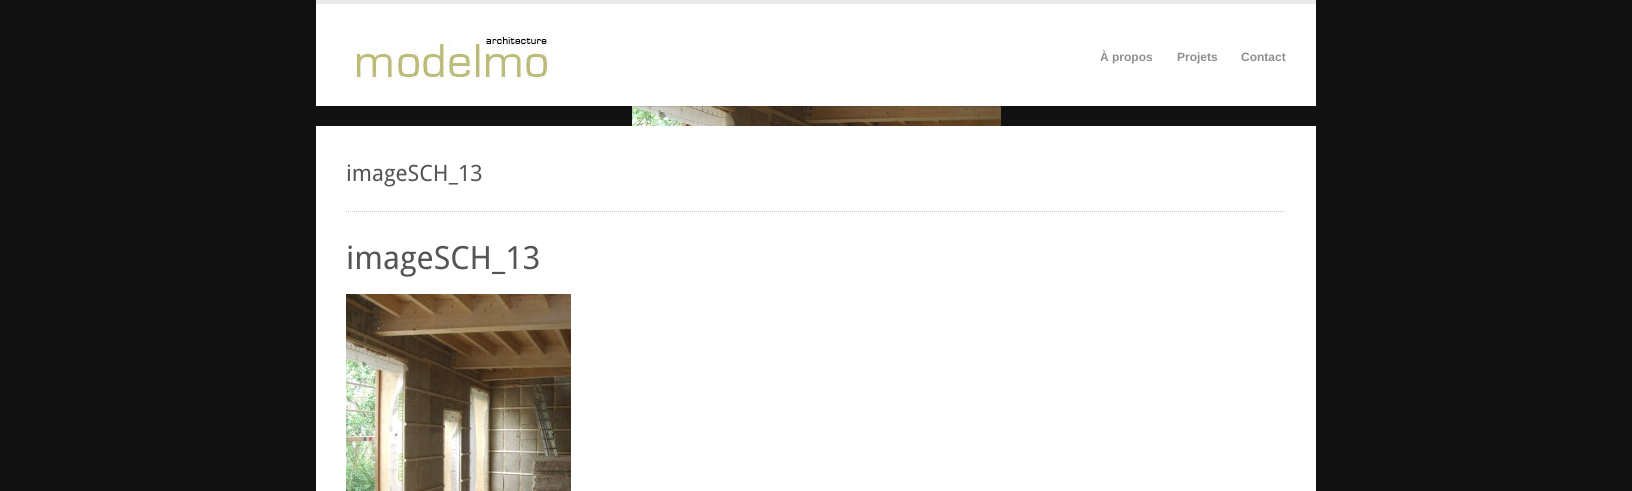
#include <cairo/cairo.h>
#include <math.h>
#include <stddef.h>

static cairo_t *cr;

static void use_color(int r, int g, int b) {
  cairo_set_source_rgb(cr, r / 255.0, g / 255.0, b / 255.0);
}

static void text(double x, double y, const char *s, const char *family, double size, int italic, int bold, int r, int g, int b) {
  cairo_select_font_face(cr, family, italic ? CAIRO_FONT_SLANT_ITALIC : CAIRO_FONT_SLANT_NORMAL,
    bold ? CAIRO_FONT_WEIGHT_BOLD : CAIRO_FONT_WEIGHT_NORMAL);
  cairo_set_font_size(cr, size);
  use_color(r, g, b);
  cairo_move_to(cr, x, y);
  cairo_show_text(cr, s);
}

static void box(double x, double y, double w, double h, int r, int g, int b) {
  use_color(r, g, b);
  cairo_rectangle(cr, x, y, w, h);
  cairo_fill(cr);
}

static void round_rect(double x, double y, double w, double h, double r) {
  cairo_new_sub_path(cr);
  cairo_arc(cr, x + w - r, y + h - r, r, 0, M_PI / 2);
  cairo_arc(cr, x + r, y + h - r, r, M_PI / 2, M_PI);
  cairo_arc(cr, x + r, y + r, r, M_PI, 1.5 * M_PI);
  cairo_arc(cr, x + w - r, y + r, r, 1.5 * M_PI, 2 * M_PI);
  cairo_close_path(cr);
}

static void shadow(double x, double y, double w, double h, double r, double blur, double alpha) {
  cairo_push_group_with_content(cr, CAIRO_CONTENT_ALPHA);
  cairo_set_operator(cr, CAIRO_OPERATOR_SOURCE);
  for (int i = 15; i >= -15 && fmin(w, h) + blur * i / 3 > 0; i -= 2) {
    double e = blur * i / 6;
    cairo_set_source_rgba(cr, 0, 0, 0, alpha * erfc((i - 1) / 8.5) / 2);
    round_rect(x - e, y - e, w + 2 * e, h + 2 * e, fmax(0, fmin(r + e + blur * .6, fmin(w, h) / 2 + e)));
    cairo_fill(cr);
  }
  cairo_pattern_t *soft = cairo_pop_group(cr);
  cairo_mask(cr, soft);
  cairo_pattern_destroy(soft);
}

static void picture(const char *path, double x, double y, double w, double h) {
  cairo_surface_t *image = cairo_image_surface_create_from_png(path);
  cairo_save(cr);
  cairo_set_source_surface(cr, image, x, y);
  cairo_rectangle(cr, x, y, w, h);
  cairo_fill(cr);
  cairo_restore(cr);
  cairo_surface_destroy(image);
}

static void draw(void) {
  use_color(17, 17, 17);
  cairo_paint(cr);
  picture("img_04.png", 632, 106, 369, 20);
  use_color(0, 0, 0);
  shadow(316, 1, 1000, 106, 0, 0.5, 0.1);
  box(316, 4, 1000, 102, 255, 255, 255);
  box(316, 0, 1000, 4, 234, 234, 234);
  picture("img_01.png", 354, 32, 200, 48);
  box(316, 126, 1000, 365, 255, 255, 255);
  picture("img_02.png", 346, 211, 939, 1);
  picture("img_03.png", 346, 294, 225, 197);
  text(1100, 61, "À propos", "Liberation Sans", 12, 0, 1, 143, 143, 143);
  text(1177, 61, "Projets", "Liberation Sans", 12, 0, 1, 143, 143, 143);
  text(1241, 61, "Contact", "Liberation Sans", 12, 0, 1, 143, 143, 143);
  text(346, 181, "imageSCH_13", "Droid Sans", 22.5, 0, 0, 85, 85, 85);
  text(346, 269, "imageSCH_13", "Droid Sans", 32, 0, 0, 85, 85, 85);
}

int main(void) {
  cairo_surface_t *surface = cairo_image_surface_create(CAIRO_FORMAT_RGB24, 1632, 491);
  cr = cairo_create(surface);
  cairo_font_options_t *options = cairo_font_options_create();
  cairo_font_options_set_hint_metrics(options, CAIRO_HINT_METRICS_OFF);
  cairo_font_options_set_hint_style(options, CAIRO_HINT_STYLE_NONE);
  cairo_set_font_options(cr, options);
  cairo_set_miter_limit(cr, 4);
  draw();
  cairo_surface_write_to_png(surface, "out.png");
  cairo_font_options_destroy(options);
  cairo_destroy(cr);
  cairo_surface_destroy(surface);
  return 0;
}
